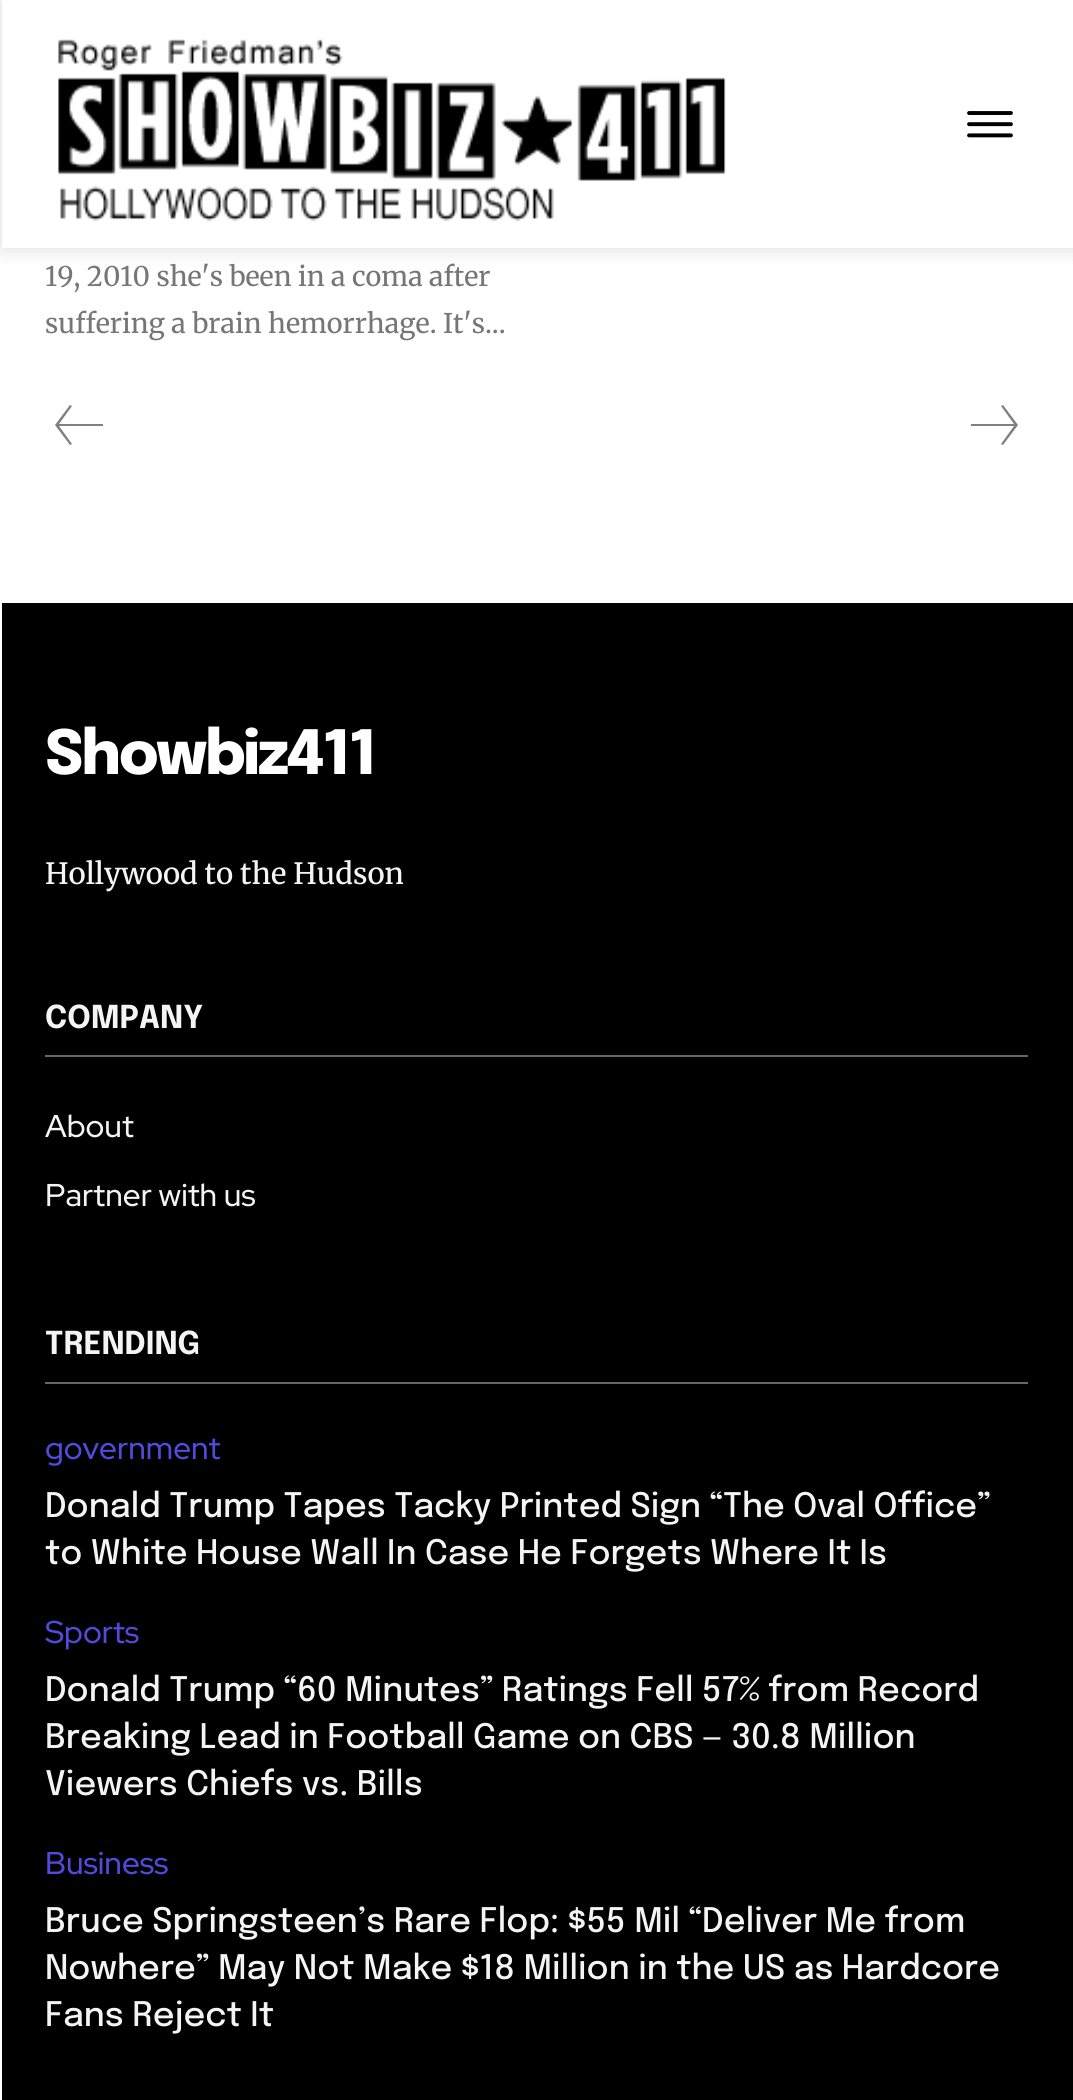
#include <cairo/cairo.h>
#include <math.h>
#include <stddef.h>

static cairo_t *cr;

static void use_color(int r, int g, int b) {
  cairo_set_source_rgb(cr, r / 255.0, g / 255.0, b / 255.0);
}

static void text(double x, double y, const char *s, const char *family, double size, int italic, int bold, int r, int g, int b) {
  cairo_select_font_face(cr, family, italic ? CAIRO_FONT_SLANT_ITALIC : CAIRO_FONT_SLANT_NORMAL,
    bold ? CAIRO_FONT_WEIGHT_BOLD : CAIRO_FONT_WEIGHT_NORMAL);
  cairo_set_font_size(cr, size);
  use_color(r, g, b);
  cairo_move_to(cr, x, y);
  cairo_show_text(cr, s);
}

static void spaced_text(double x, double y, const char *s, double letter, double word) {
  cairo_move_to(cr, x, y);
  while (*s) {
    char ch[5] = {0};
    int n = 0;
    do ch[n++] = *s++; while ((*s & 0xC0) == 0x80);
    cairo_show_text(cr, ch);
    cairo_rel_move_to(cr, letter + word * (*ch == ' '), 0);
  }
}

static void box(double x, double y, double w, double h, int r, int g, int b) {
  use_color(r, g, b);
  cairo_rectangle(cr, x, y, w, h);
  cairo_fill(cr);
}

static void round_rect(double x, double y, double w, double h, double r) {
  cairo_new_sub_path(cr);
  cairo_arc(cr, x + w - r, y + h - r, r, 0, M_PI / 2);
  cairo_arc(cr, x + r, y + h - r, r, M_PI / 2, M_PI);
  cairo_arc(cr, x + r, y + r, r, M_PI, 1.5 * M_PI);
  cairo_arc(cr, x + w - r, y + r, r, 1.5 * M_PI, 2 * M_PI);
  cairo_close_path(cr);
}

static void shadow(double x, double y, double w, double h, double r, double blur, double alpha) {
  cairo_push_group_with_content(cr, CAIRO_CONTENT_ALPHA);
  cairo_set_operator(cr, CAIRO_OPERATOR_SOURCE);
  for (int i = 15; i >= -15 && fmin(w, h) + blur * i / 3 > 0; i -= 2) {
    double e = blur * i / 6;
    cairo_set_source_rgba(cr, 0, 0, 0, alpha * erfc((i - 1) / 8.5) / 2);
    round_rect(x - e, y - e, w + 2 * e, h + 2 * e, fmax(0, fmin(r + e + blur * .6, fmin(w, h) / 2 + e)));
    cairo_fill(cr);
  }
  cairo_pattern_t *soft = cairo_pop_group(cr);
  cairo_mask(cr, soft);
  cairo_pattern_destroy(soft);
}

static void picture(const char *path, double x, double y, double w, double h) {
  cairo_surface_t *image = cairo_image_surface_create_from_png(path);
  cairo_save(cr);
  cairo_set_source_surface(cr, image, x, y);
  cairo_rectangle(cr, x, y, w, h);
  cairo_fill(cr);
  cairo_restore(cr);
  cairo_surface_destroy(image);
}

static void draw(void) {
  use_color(255, 255, 255);
  cairo_paint(cr);
  picture("img_01.png", 58, 39, 668, 183);
  picture("img_02.png", 967, 111, 46, 27);
  cairo_save(cr);
  cairo_set_fill_rule(cr, CAIRO_FILL_RULE_EVEN_ODD);
  cairo_new_path(cr);
  cairo_move_to(cr, 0, 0);
  cairo_line_to(cr, 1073, 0);
  cairo_line_to(cr, 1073, 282);
  cairo_line_to(cr, 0, 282);
  cairo_close_path(cr);
  cairo_move_to(cr, 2, 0);
  cairo_line_to(cr, 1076, 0);
  cairo_line_to(cr, 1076, 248);
  cairo_line_to(cr, 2, 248);
  cairo_close_path(cr);
  cairo_clip(cr);
  use_color(0, 0, 0);
  shadow(2, 0, 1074, 248, 0, 11, 0.15);
  cairo_restore(cr);
  use_color(128, 128, 128);
  cairo_new_path(cr);
  cairo_move_to(cr, 72, 444);
  cairo_line_to(cr, 59, 426);
  cairo_line_to(cr, 103, 426);
  cairo_line_to(cr, 103, 424);
  cairo_line_to(cr, 59, 424);
  cairo_line_to(cr, 72, 406);
  cairo_line_to(cr, 70, 405);
  cairo_line_to(cr, 55, 425);
  cairo_line_to(cr, 70, 445);
  cairo_close_path(cr);
  cairo_fill(cr);
  cairo_new_path(cr);
  cairo_move_to(cr, 1001, 444);
  cairo_line_to(cr, 1003, 445);
  cairo_line_to(cr, 1018, 425);
  cairo_line_to(cr, 1003, 405);
  cairo_line_to(cr, 1001, 406);
  cairo_line_to(cr, 1014, 424);
  cairo_line_to(cr, 971, 424);
  cairo_line_to(cr, 971, 426);
  cairo_line_to(cr, 1014, 426);
  cairo_close_path(cr);
  cairo_fill(cr);
  box(2, 603, 1071, 1497, 0, 0, 0);
  box(45, 1055, 983, 2, 102, 102, 102);
  box(45, 1382, 983, 2, 102, 102, 102);
  text(45, 286, "19, 2010 she's been in a coma after", "Merriweather", 27, 0, 0, 118, 118, 118);
  text(45, 333, "suffering a brain hemorrhage. It's...", "Merriweather", 27, 0, 0, 118, 118, 118);
  cairo_select_font_face(cr, "Epilogue ExtraBold", CAIRO_FONT_SLANT_NORMAL, CAIRO_FONT_WEIGHT_NORMAL);
  cairo_set_font_size(cr, 60.75);
  use_color(255, 255, 255);
  spaced_text(45, 774, "Showbiz411", -2.25, 0);
  text(45, 884, "Hollywood to the Hudson", "Merriweather Medium", 29.25, 0, 0, 244, 244, 244);
  text(45, 1028, "COMPANY", "Epilogue", 31.5, 0, 1, 244, 244, 244);
  text(45, 1137, "About", "Red Hat Display Medium", 31.5, 0, 0, 244, 244, 244);
  text(45, 1206, "Partner with us", "Red Hat Display Medium", 31.5, 0, 0, 244, 244, 244);
  text(45, 1354, "TRENDING", "Epilogue", 31.5, 0, 1, 244, 244, 244);
  text(45, 1459, "government", "Red Hat Display Medium", 31.5, 0, 0, 80, 75, 220);
  text(45, 1517, "Donald Trump Tapes Tacky Printed Sign “The Oval Office”", "Epilogue Medium", 33.75, 0, 0, 244, 244, 244);
  text(45, 1564, "to White House Wall In Case He Forgets Where It Is", "Epilogue Medium", 33.75, 0, 0, 244, 244, 244);
  text(45, 1643, "Sports", "Red Hat Display Medium", 31.5, 0, 0, 80, 75, 220);
  text(45, 1701, "Donald Trump “60 Minutes” Ratings Fell 57% from Record", "Epilogue Medium", 33.75, 0, 0, 244, 244, 244);
  text(45, 1748, "Breaking Lead in Football Game on CBS — 30.8 Million", "Epilogue Medium", 33.75, 0, 0, 244, 244, 244);
  text(45, 1795, "Viewers Chiefs vs. Bills", "Epilogue Medium", 33.75, 0, 0, 244, 244, 244);
  text(45, 1874, "Business", "Red Hat Display Medium", 31.5, 0, 0, 80, 75, 220);
  text(45, 1932, "Bruce Springsteen’s Rare Flop: $55 Mil “Deliver Me from", "Epilogue Medium", 33.75, 0, 0, 244, 244, 244);
  text(45, 1979, "Nowhere” May Not Make $18 Million in the US as Hardcore", "Epilogue Medium", 33.75, 0, 0, 244, 244, 244);
  text(45, 2026, "Fans Reject It", "Epilogue Medium", 33.75, 0, 0, 244, 244, 244);
}

int main(void) {
  cairo_surface_t *surface = cairo_image_surface_create(CAIRO_FORMAT_RGB24, 1073, 2100);
  cr = cairo_create(surface);
  cairo_font_options_t *options = cairo_font_options_create();
  cairo_font_options_set_hint_metrics(options, CAIRO_HINT_METRICS_OFF);
  cairo_font_options_set_hint_style(options, CAIRO_HINT_STYLE_NONE);
  cairo_set_font_options(cr, options);
  cairo_set_miter_limit(cr, 4);
  draw();
  cairo_surface_write_to_png(surface, "out.png");
  cairo_font_options_destroy(options);
  cairo_destroy(cr);
  cairo_surface_destroy(surface);
  return 0;
}
